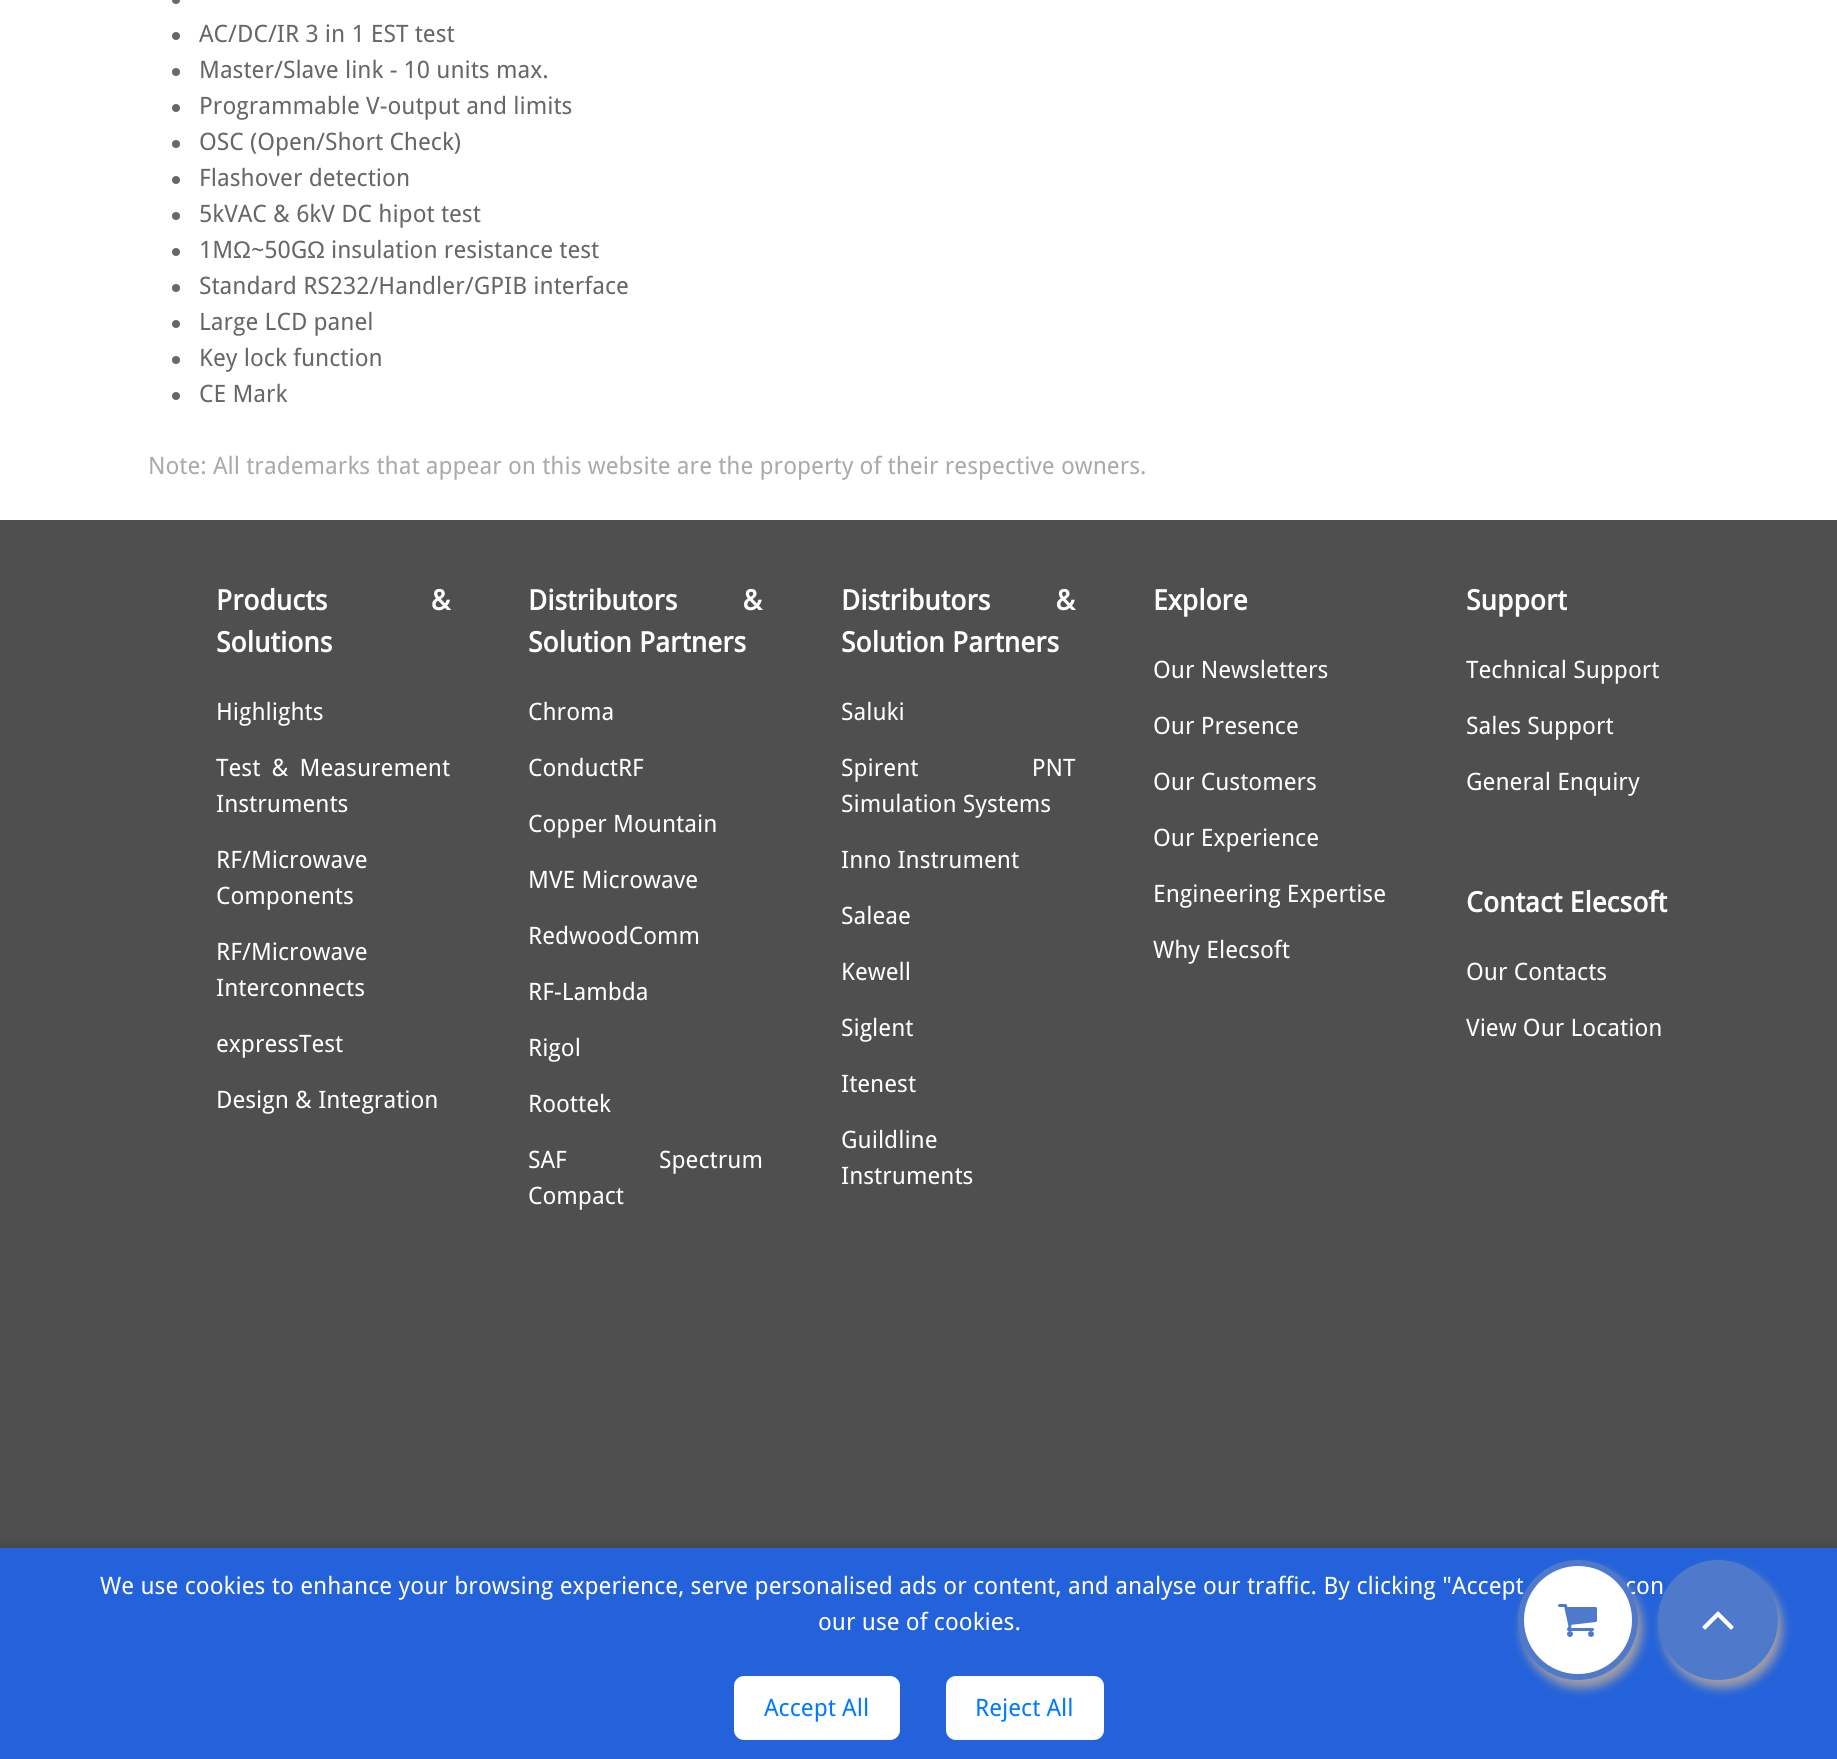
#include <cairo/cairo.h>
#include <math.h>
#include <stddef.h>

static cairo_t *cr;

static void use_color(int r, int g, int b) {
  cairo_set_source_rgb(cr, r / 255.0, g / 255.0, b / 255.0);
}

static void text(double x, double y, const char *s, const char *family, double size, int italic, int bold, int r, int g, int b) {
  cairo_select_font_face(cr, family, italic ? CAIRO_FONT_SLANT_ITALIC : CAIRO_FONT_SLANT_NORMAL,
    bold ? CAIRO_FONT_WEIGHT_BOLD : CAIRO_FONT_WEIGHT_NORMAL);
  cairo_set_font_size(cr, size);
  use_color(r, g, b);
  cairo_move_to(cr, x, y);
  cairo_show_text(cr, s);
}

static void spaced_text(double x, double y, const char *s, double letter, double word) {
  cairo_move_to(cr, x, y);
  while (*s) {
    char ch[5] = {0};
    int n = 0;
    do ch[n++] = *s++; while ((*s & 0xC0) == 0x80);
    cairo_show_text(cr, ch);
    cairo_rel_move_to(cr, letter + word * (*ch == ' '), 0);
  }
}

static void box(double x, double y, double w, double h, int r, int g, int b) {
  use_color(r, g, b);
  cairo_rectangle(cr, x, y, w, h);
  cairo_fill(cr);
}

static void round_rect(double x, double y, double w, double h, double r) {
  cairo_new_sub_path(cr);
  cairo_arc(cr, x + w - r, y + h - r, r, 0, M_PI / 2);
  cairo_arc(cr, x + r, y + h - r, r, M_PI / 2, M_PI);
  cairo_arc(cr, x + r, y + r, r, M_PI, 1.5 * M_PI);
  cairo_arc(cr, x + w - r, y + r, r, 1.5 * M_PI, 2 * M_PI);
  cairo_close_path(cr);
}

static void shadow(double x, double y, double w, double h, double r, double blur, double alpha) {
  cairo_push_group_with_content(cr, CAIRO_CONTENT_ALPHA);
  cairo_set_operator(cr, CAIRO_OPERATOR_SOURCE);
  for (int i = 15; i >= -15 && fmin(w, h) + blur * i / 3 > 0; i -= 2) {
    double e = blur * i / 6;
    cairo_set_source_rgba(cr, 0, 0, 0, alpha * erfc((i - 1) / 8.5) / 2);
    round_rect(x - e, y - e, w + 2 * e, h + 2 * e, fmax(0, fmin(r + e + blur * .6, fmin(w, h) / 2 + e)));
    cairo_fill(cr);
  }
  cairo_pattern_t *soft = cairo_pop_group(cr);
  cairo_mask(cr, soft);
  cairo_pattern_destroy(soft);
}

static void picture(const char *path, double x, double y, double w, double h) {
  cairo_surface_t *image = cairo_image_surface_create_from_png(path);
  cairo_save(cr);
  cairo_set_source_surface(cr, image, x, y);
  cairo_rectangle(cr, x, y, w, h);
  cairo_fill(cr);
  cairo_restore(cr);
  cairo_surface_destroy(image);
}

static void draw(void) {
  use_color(255, 255, 255);
  cairo_paint(cr);
  use_color(103, 103, 103);
  cairo_arc(cr, 176, 0, 4, 0, 2 * M_PI);
  cairo_fill(cr);
  cairo_arc(cr, 176, 36, 4, 0, 2 * M_PI);
  cairo_fill(cr);
  cairo_arc(cr, 176, 72, 4, 0, 2 * M_PI);
  cairo_fill(cr);
  cairo_arc(cr, 176, 108, 4, 0, 2 * M_PI);
  cairo_fill(cr);
  cairo_arc(cr, 176, 144, 4, 0, 2 * M_PI);
  cairo_fill(cr);
  cairo_arc(cr, 176, 180, 4, 0, 2 * M_PI);
  cairo_fill(cr);
  cairo_arc(cr, 176, 216, 4, 0, 2 * M_PI);
  cairo_fill(cr);
  cairo_arc(cr, 176, 252, 4, 0, 2 * M_PI);
  cairo_fill(cr);
  cairo_arc(cr, 176, 288, 4, 0, 2 * M_PI);
  cairo_fill(cr);
  cairo_arc(cr, 176, 324, 4, 0, 2 * M_PI);
  cairo_fill(cr);
  cairo_arc(cr, 176, 360, 4, 0, 2 * M_PI);
  cairo_fill(cr);
  cairo_arc(cr, 176, 396, 4, 0, 2 * M_PI);
  cairo_fill(cr);
  box(0, 520, 1837, 1028, 79, 79, 79);
  use_color(0, 0, 0);
  shadow(0, 1544, 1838, 212, 0, 5, 0.1);
  box(0, 1548, 1837, 211, 35, 98, 218);
  use_color(163, 158, 163);
  shadow(1522, 1568, 120, 120, 60, 5, 1);
  shadow(1662, 1568, 120, 120, 60, 5, 1);
  use_color(255, 255, 255);
  round_rect(734, 1676, 166, 64, 10);
  cairo_fill(cr);
  round_rect(946, 1676, 158, 64, 10);
  cairo_fill(cr);
  text(199, 42, "AC/DC/IR 3 in 1 EST test", "Droid Sans", 24, 0, 0, 103, 103, 103);
  text(199, 78, "Master/Slave link - 10 units max.", "Droid Sans", 24, 0, 0, 103, 103, 103);
  text(199, 114, "Programmable V-output and limits", "Droid Sans", 24, 0, 0, 103, 103, 103);
  text(199, 150, "OSC (Open/Short Check)", "Droid Sans", 24, 0, 0, 103, 103, 103);
  text(199, 186, "Flashover detection", "Droid Sans", 24, 0, 0, 103, 103, 103);
  text(199, 222, "5kVAC & 6kV DC hipot test", "Droid Sans", 24, 0, 0, 103, 103, 103);
  text(199, 258, "1M", "Droid Sans", 24, 0, 0, 103, 103, 103);
  text(233, 258, "Ω", "Liberation Sans", 24, 0, 0, 103, 103, 103);
  text(251, 258, "~50G", "Droid Sans", 24, 0, 0, 103, 103, 103);
  text(307, 258, "Ω", "Liberation Sans", 24, 0, 0, 103, 103, 103);
  text(331, 258, "insulation resistance test", "Droid Sans", 24, 0, 0, 103, 103, 103);
  text(199, 294, "Standard RS232/Handler/GPIB interface", "Droid Sans", 24, 0, 0, 103, 103, 103);
  text(199, 330, "Large LCD panel", "Droid Sans", 24, 0, 0, 103, 103, 103);
  text(199, 366, "Key lock function", "Droid Sans", 24, 0, 0, 103, 103, 103);
  text(199, 402, "CE Mark", "Droid Sans", 24, 0, 0, 103, 103, 103);
  text(148, 474, "Note: All trademarks that appear on this website are the property of their respective owners.", "Droid Sans", 24, 0, 0, 170, 170, 170);
  cairo_select_font_face(cr, "Droid Sans", CAIRO_FONT_SLANT_NORMAL, CAIRO_FONT_WEIGHT_BOLD);
  cairo_set_font_size(cr, 28);
  use_color(255, 255, 255);
  spaced_text(216, 610, "Products &", 0, 96);
  text(216, 652, "Solutions", "Droid Sans", 28, 0, 1, 255, 255, 255);
  text(216, 720, "Highlights", "Droid Sans", 24, 0, 0, 255, 255, 255);
  spaced_text(216, 776, "Test & Measurement", 0, 5);
  text(216, 812, "Instruments", "Droid Sans", 24, 0, 0, 255, 255, 255);
  text(216, 868, "RF/Microwave", "Droid Sans", 24, 0, 0, 255, 255, 255);
  text(216, 904, "Components", "Droid Sans", 24, 0, 0, 255, 255, 255);
  text(216, 960, "RF/Microwave", "Droid Sans", 24, 0, 0, 255, 255, 255);
  text(216, 996, "Interconnects", "Droid Sans", 24, 0, 0, 255, 255, 255);
  text(216, 1052, "expressTest", "Droid Sans", 24, 0, 0, 255, 255, 255);
  text(216, 1108, "Design & Integration", "Droid Sans", 24, 0, 0, 255, 255, 255);
  cairo_select_font_face(cr, "Droid Sans", CAIRO_FONT_SLANT_NORMAL, CAIRO_FONT_WEIGHT_BOLD);
  cairo_set_font_size(cr, 28);
  spaced_text(528, 610, "Distributors &", 0, 58);
  text(528, 652, "Solution Partners", "Droid Sans", 28, 0, 1, 255, 255, 255);
  text(528, 720, "Chroma", "Droid Sans", 24, 0, 0, 255, 255, 255);
  text(528, 776, "ConductRF", "Droid Sans", 24, 0, 0, 255, 255, 255);
  text(528, 832, "Copper Mountain", "Droid Sans", 24, 0, 0, 255, 255, 255);
  text(528, 888, "MVE Microwave", "Droid Sans", 24, 0, 0, 255, 255, 255);
  text(528, 944, "RedwoodComm", "Droid Sans", 24, 0, 0, 255, 255, 255);
  text(528, 1000, "RF-Lambda", "Droid Sans", 24, 0, 0, 255, 255, 255);
  text(528, 1056, "Rigol", "Droid Sans", 24, 0, 0, 255, 255, 255);
  text(528, 1112, "Roottek", "Droid Sans", 24, 0, 0, 255, 255, 255);
  spaced_text(528, 1168, "SAF Spectrum", 0, 86);
  text(528, 1204, "Compact", "Droid Sans", 24, 0, 0, 255, 255, 255);
  cairo_select_font_face(cr, "Droid Sans", CAIRO_FONT_SLANT_NORMAL, CAIRO_FONT_WEIGHT_BOLD);
  cairo_set_font_size(cr, 28);
  spaced_text(841, 610, "Distributors &", 0, 58);
  text(841, 652, "Solution Partners", "Droid Sans", 28, 0, 1, 255, 255, 255);
  text(841, 720, "Saluki", "Droid Sans", 24, 0, 0, 255, 255, 255);
  spaced_text(841, 776, "Spirent PNT", 0, 107);
  text(841, 812, "Simulation Systems", "Droid Sans", 24, 0, 0, 255, 255, 255);
  text(841, 868, "Inno Instrument", "Droid Sans", 24, 0, 0, 255, 255, 255);
  text(841, 924, "Saleae", "Droid Sans", 24, 0, 0, 255, 255, 255);
  text(841, 980, "Kewell", "Droid Sans", 24, 0, 0, 255, 255, 255);
  text(841, 1036, "Siglent", "Droid Sans", 24, 0, 0, 255, 255, 255);
  text(841, 1092, "Itenest", "Droid Sans", 24, 0, 0, 255, 255, 255);
  text(841, 1148, "Guildline", "Droid Sans", 24, 0, 0, 255, 255, 255);
  text(841, 1184, "Instruments", "Droid Sans", 24, 0, 0, 255, 255, 255);
  text(1153, 610, "Explore", "Droid Sans", 28, 0, 1, 255, 255, 255);
  text(1153, 678, "Our Newsletters", "Droid Sans", 24, 0, 0, 255, 255, 255);
  text(1153, 734, "Our Presence", "Droid Sans", 24, 0, 0, 255, 255, 255);
  text(1153, 790, "Our Customers", "Droid Sans", 24, 0, 0, 255, 255, 255);
  text(1153, 846, "Our Experience", "Droid Sans", 24, 0, 0, 255, 255, 255);
  text(1153, 902, "Engineering Expertise", "Droid Sans", 24, 0, 0, 255, 255, 255);
  text(1153, 958, "Why Elecsoft", "Droid Sans", 24, 0, 0, 255, 255, 255);
  text(1466, 610, "Support", "Droid Sans", 28, 0, 1, 255, 255, 255);
  text(1466, 678, "Technical Support", "Droid Sans", 24, 0, 0, 255, 255, 255);
  text(1466, 734, "Sales Support", "Droid Sans", 24, 0, 0, 255, 255, 255);
  text(1466, 790, "General Enquiry", "Droid Sans", 24, 0, 0, 255, 255, 255);
  text(1466, 912, "Contact Elecsoft", "Droid Sans", 28, 0, 1, 255, 255, 255);
  text(1466, 980, "Our Contacts", "Droid Sans", 24, 0, 0, 255, 255, 255);
  text(1466, 1036, "View Our Location", "Droid Sans", 24, 0, 0, 255, 255, 255);
  spaced_text(100, 1594, "We use cookies to enhance your browsing experience, serve personalised ads or content, and analyse our traffic. By clicking \"Accept", 0, 0.2);
  spaced_text(1625, 1594, "con", 0, 0.2);
  cairo_new_path(cr);
  cairo_arc(cr, 1578, 1620, 57, 0, 2 * M_PI);
  use_color(79, 122, 204);
  cairo_set_line_width(cr, 6);
  cairo_stroke(cr);
  use_color(255, 255, 255);
  cairo_arc(cr, 1578, 1620, 54, 0, 2 * M_PI);
  cairo_fill(cr);
  picture("img_01.png", 1558, 1604, 39, 33);
  use_color(79, 122, 204);
  cairo_arc(cr, 1718, 1620, 60, 0, 2 * M_PI);
  cairo_fill(cr);
  picture("img_02.png", 1702, 1611, 32, 19);
  text(818, 1630, "our use of cookies.", "Droid Sans", 24, 0, 0, 255, 255, 255);
  text(764, 1716, "Accept All", "Droid Sans", 24, 0, 0, 0, 123, 255);
  text(975, 1716, "Reject All", "Droid Sans", 24, 0, 0, 0, 123, 255);
}

int main(void) {
  cairo_surface_t *surface = cairo_image_surface_create(CAIRO_FORMAT_RGB24, 1837, 1759);
  cr = cairo_create(surface);
  cairo_font_options_t *options = cairo_font_options_create();
  cairo_font_options_set_hint_metrics(options, CAIRO_HINT_METRICS_OFF);
  cairo_font_options_set_hint_style(options, CAIRO_HINT_STYLE_NONE);
  cairo_set_font_options(cr, options);
  cairo_set_miter_limit(cr, 4);
  draw();
  cairo_surface_write_to_png(surface, "out.png");
  cairo_font_options_destroy(options);
  cairo_destroy(cr);
  cairo_surface_destroy(surface);
  return 0;
}
